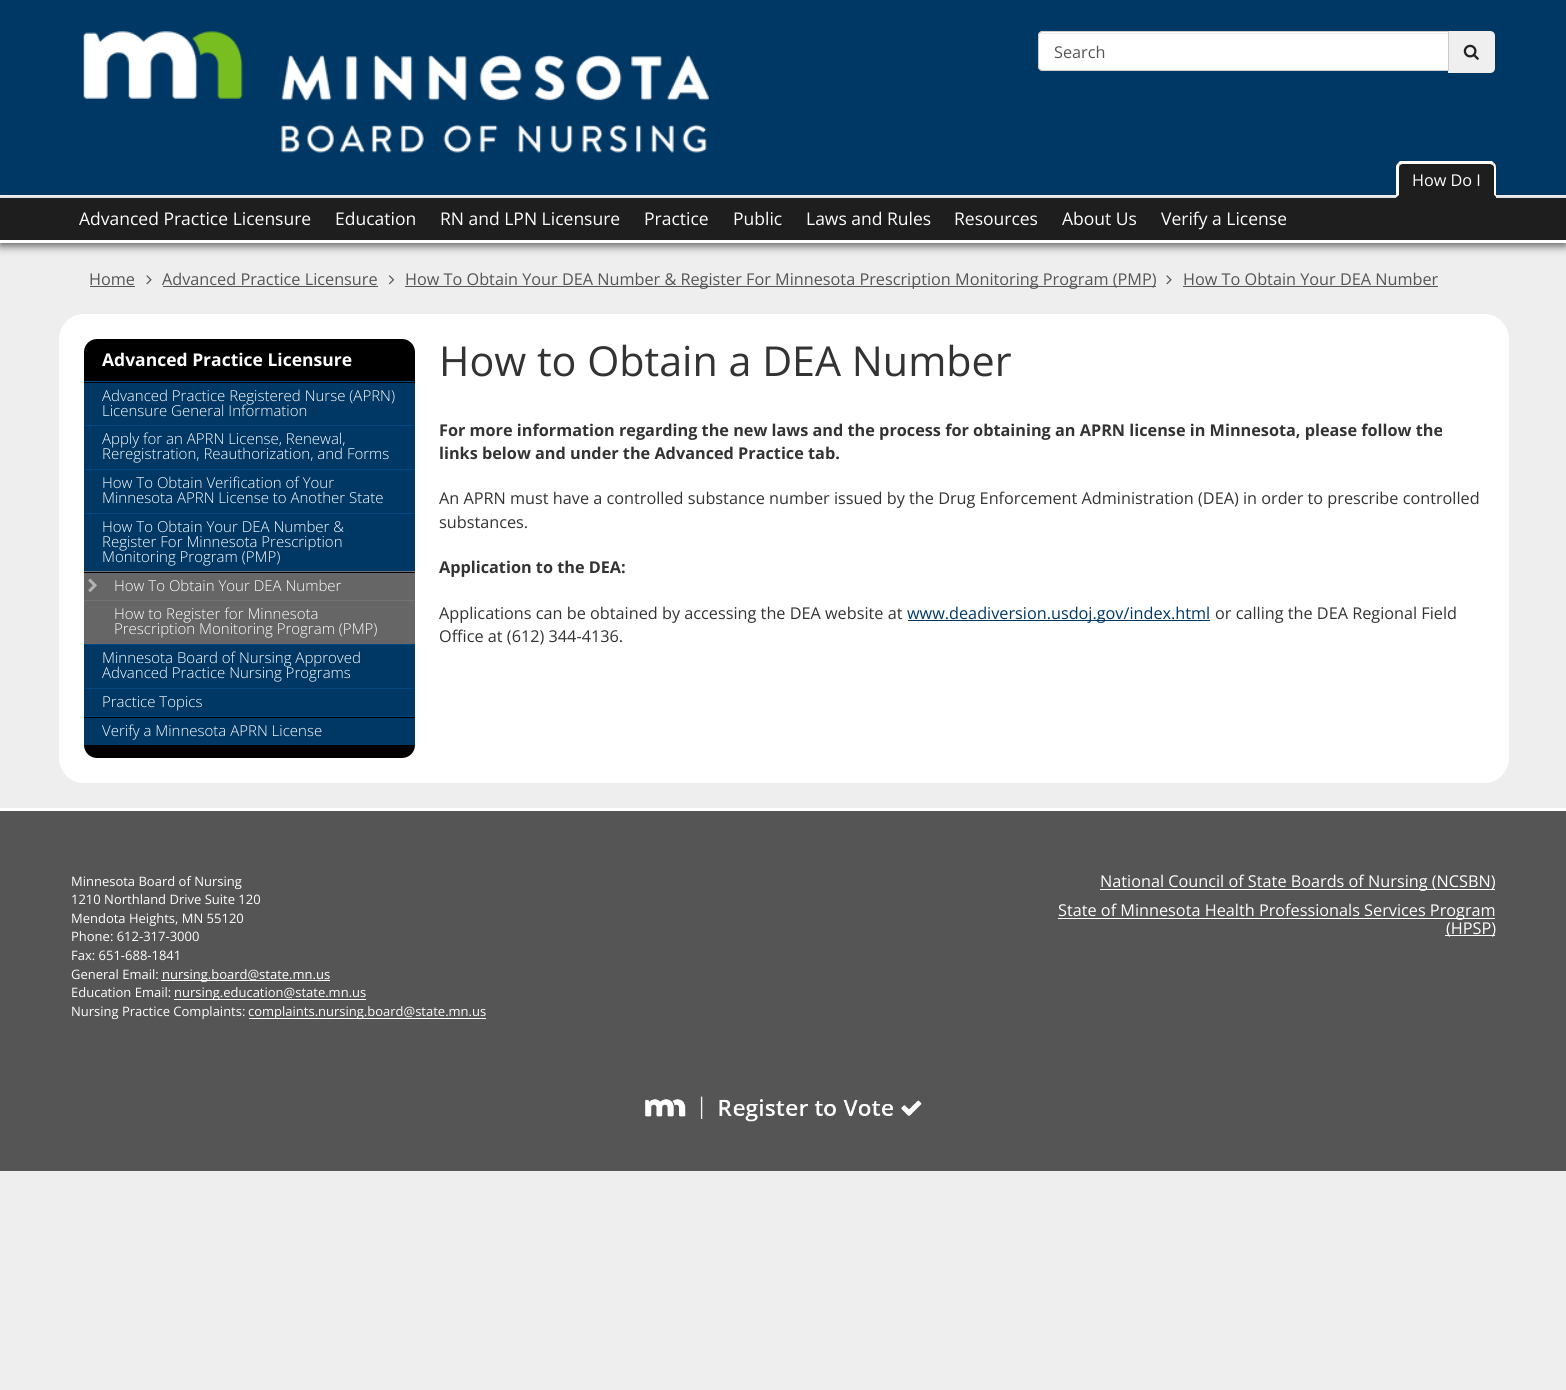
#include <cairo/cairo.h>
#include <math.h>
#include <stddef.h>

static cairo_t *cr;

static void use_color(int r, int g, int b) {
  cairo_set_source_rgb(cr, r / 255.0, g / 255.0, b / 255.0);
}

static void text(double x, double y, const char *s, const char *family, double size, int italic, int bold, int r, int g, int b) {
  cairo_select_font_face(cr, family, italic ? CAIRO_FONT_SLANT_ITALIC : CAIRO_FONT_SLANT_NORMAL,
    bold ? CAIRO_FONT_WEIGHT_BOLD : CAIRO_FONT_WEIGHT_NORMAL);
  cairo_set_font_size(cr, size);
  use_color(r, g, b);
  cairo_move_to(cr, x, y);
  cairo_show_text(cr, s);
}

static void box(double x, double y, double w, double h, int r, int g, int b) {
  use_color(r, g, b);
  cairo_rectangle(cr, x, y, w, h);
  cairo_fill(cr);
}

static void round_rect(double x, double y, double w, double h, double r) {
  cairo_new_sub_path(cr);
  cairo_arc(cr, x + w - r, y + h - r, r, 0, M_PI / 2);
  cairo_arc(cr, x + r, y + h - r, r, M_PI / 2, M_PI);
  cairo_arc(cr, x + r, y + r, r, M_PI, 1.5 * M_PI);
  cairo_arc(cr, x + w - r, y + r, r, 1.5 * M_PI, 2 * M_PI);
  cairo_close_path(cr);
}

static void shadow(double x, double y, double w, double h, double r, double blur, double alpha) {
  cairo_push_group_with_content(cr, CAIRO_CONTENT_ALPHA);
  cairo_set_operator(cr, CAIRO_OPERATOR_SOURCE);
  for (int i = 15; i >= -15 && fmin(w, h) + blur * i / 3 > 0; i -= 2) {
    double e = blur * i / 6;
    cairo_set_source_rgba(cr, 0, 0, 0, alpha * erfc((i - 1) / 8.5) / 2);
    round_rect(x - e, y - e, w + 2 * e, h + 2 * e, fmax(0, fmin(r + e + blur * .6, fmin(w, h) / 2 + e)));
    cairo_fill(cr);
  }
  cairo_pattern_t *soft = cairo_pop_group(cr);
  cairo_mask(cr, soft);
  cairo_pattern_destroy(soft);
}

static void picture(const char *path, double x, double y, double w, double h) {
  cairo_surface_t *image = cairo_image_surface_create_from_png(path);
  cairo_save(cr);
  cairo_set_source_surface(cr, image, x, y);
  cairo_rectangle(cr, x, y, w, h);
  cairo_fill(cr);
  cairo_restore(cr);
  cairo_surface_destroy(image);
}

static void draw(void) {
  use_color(238, 238, 238);
  cairo_paint(cr);
  box(0, 0, 1566, 195, 0, 56, 101);
  box(0, 195, 1566, 3, 255, 255, 255);
  picture("img_01.png", 83, 31, 626, 122);
  use_color(239, 239, 239);
  cairo_new_path(cr);
  cairo_move_to(cr, 1448, 31);
  cairo_line_to(cr, 1490, 31);
  cairo_curve_to(cr, 1493, 31, 1495, 33, 1495, 36);
  cairo_line_to(cr, 1495, 68);
  cairo_curve_to(cr, 1495, 71, 1493, 73, 1490, 73);
  cairo_line_to(cr, 1448, 73);
  cairo_close_path(cr);
  cairo_fill(cr);
  use_color(255, 255, 255);
  cairo_new_path(cr);
  cairo_move_to(cr, 1043, 31);
  cairo_line_to(cr, 1449, 31);
  cairo_line_to(cr, 1449, 71);
  cairo_line_to(cr, 1043, 71);
  cairo_curve_to(cr, 1040, 71, 1038, 69, 1038, 66);
  cairo_line_to(cr, 1038, 36);
  cairo_curve_to(cr, 1038, 33, 1040, 31, 1043, 31);
  cairo_close_path(cr);
  cairo_fill(cr);
  use_color(236, 236, 236);
  cairo_new_path(cr);
  cairo_move_to(cr, 1042, 34);
  cairo_line_to(cr, 1448, 34);
  cairo_line_to(cr, 1448, 33);
  cairo_line_to(cr, 1043, 33);
  cairo_curve_to(cr, 1041, 33, 1039, 35, 1039, 37);
  cairo_line_to(cr, 1039, 38);
  cairo_curve_to(cr, 1039, 35, 1040, 34, 1042, 34);
  cairo_close_path(cr);
  cairo_fill(cr);
  cairo_new_path(cr);
  cairo_move_to(cr, 1043, 31.5);
  cairo_line_to(cr, 1448.5, 31.5);
  cairo_line_to(cr, 1448.5, 70.5);
  cairo_line_to(cr, 1043, 70.5);
  cairo_curve_to(cr, 1040.5, 70.5, 1038.5, 68.5, 1038.5, 66);
  cairo_line_to(cr, 1038.5, 36);
  cairo_curve_to(cr, 1038.5, 33.5, 1040.5, 31.5, 1043, 31.5);
  cairo_close_path(cr);
  use_color(204, 204, 204);
  cairo_set_line_width(cr, 1);
  cairo_stroke(cr);
  picture("img_02.png", 1463, 44, 16, 16);
  use_color(0, 0, 0);
  shadow(0, 201, 1566, 45, 0, 4.5, 0.6);
  use_color(30, 30, 30);
  cairo_new_path(cr);
  cairo_move_to(cr, 1402, 161);
  cairo_line_to(cr, 1490, 161);
  cairo_curve_to(cr, 1493.5, 161, 1496, 163.5, 1496, 167);
  cairo_line_to(cr, 1496, 198);
  cairo_line_to(cr, 1396, 198);
  cairo_line_to(cr, 1396, 167);
  cairo_curve_to(cr, 1396, 163.5, 1398.5, 161, 1402, 161);
  cairo_close_path(cr);
  cairo_fill(cr);
  use_color(255, 255, 255);
  cairo_new_path(cr);
  cairo_move_to(cr, 1402, 164);
  cairo_line_to(cr, 1400, 165);
  cairo_line_to(cr, 1398, 163);
  cairo_line_to(cr, 1400, 161);
  cairo_line_to(cr, 1492, 161);
  cairo_line_to(cr, 1494, 163);
  cairo_line_to(cr, 1493, 165);
  cairo_line_to(cr, 1490, 164);
  cairo_close_path(cr);
  cairo_fill(cr);
  cairo_new_path(cr);
  cairo_move_to(cr, 1494.5, 163);
  cairo_curve_to(cr, 1495.5, 164.5, 1496, 166, 1496, 168);
  cairo_line_to(cr, 1496, 197);
  cairo_line_to(cr, 1494, 195);
  cairo_line_to(cr, 1494, 168);
  cairo_curve_to(cr, 1494, 166.5, 1493.5, 165.5, 1492.5, 165);
  cairo_close_path(cr);
  cairo_fill(cr);
  use_color(30, 30, 30);
  cairo_new_path(cr);
  cairo_move_to(cr, 1496, 197);
  cairo_line_to(cr, 1396, 198);
  cairo_line_to(cr, 1399, 195);
  cairo_line_to(cr, 1494, 195);
  cairo_close_path(cr);
  cairo_fill(cr);
  use_color(255, 255, 255);
  cairo_new_path(cr);
  cairo_move_to(cr, 1396, 197.5);
  cairo_line_to(cr, 1396, 166);
  cairo_curve_to(cr, 1396.5, 165, 1397, 164, 1398, 163);
  cairo_line_to(cr, 1400, 165);
  cairo_curve_to(cr, 1399.5, 165.5, 1399, 166.5, 1399, 168);
  cairo_line_to(cr, 1399, 195);
  cairo_close_path(cr);
  cairo_fill(cr);
  box(0, 198, 1566, 42, 30, 30, 30);
  box(0, 240, 1566, 3, 255, 255, 255);
  box(90, 286, 45, 1, 85, 85, 85);
  picture("img_03.png", 146, 275, 6, 10);
  box(163, 286, 215, 1, 85, 85, 85);
  picture("img_04.png", 388, 275, 7, 10);
  box(405, 286, 751, 1, 85, 85, 85);
  picture("img_03.png", 1166, 275, 6, 10);
  box(1183, 286, 255, 1, 85, 85, 85);
  use_color(255, 255, 255);
  round_rect(59, 314, 1450, 469, 25);
  cairo_fill(cr);
  use_color(0, 0, 0);
  round_rect(84, 339, 331, 419, 13);
  cairo_fill(cr);
  box(84, 351, 331, 1, 0, 0, 0);
  box(84, 381, 331, 1, 0, 70, 127);
  box(84, 383, 331, 42, 0, 56, 101);
  box(84, 425, 331, 1, 0, 70, 127);
  box(84, 426, 331, 43, 0, 56, 101);
  box(84, 469, 331, 1, 0, 70, 127);
  box(84, 470, 331, 43, 0, 56, 101);
  box(84, 513, 331, 1, 0, 70, 127);
  box(84, 514, 331, 57, 0, 56, 101);
  box(84, 571, 331, 1, 115, 115, 115);
  box(84, 573, 331, 27, 102, 102, 102);
  picture("img_05.png", 88, 578, 9, 14);
  box(84, 600, 331, 1, 115, 115, 115);
  box(84, 601, 331, 43, 102, 102, 102);
  box(84, 644, 331, 1, 0, 70, 127);
  box(84, 645, 331, 43, 0, 56, 101);
  box(84, 688, 331, 1, 0, 70, 127);
  box(84, 689, 331, 27, 0, 56, 101);
  box(84, 716, 331, 1, 0, 70, 127);
  box(84, 718, 331, 27, 0, 56, 101);
  box(908, 620, 302, 1, 0, 56, 101);
  box(0, 811, 1566, 360, 85, 85, 85);
  box(0, 808, 1566, 3, 255, 255, 255);
  box(161, 980, 169, 1, 255, 255, 255);
  box(174, 999, 192, 1, 255, 255, 255);
  box(249, 1018, 237, 1, 255, 255, 255);
  box(1100, 889, 395, 1, 255, 255, 255);
  box(1058, 918, 437, 1, 255, 255, 255);
  box(1445, 935, 50, 1, 255, 255, 255);
  picture("img_06.png", 645, 1096, 58, 23);
  picture("img_07.png", 719, 1099, 203, 23);
  text(1054, 58, "Search", "Open Sans", 16.25, 0, 0, 85, 85, 85);
  text(1412, 186, "How Do I", "Open Sans", 16.25, 0, 0, 255, 255, 255);
  text(79, 225, "Advanced Practice Licensure", "Open Sans", 17.5, 0, 0, 255, 255, 255);
  text(335, 225, "Education", "Open Sans", 17.5, 0, 0, 255, 255, 255);
  text(440, 225, "RN and LPN Licensure", "Open Sans", 17.5, 0, 0, 255, 255, 255);
  text(644, 225, "Practice", "Open Sans", 17.5, 0, 0, 255, 255, 255);
  text(733, 225, "Public", "Open Sans", 17.5, 0, 0, 255, 255, 255);
  text(806, 225, "Laws and Rules", "Open Sans", 17.5, 0, 0, 255, 255, 255);
  text(954, 225, "Resources", "Open Sans", 17.5, 0, 0, 255, 255, 255);
  text(1062, 225, "About Us", "Open Sans", 17.5, 0, 0, 255, 255, 255);
  text(1161, 225, "Verify a License", "Open Sans", 17.5, 0, 0, 255, 255, 255);
  text(89, 285, "Home", "Open Sans", 16.25, 0, 0, 85, 85, 85);
  text(162, 285, "Advanced Practice Licensure", "Open Sans", 16.25, 0, 0, 85, 85, 85);
  text(405, 285, "How To Obtain Your DEA Number & Register For Minnesota Prescription Monitoring Program (PMP)", "Open Sans", 16.25, 0, 0, 85, 85, 85);
  text(1183, 285, "How To Obtain Your DEA Number", "Open Sans", 16.25, 0, 0, 85, 85, 85);
  text(102, 366, "Advanced Practice Licensure", "Open Sans", 17.5, 0, 1, 255, 255, 255);
  text(102, 401, "Advanced Practice Registered Nurse (APRN)", "Open Sans Light", 15, 0, 0, 255, 255, 255);
  text(102, 416, "Licensure General Information", "Open Sans Light", 15, 0, 0, 255, 255, 255);
  text(102, 444, "Apply for an APRN License, Renewal,", "Open Sans Light", 15, 0, 0, 255, 255, 255);
  text(102, 459, "Reregistration, Reauthorization, and Forms", "Open Sans Light", 15, 0, 0, 255, 255, 255);
  text(102, 488, "How To Obtain Verification of Your", "Open Sans Light", 15, 0, 0, 255, 255, 255);
  text(102, 503, "Minnesota APRN License to Another State", "Open Sans Light", 15, 0, 0, 255, 255, 255);
  text(102, 532, "How To Obtain Your DEA Number &", "Open Sans Light", 15, 0, 0, 255, 255, 255);
  text(102, 547, "Register For Minnesota Prescription", "Open Sans Light", 15, 0, 0, 255, 255, 255);
  text(102, 562, "Monitoring Program (PMP)", "Open Sans Light", 15, 0, 0, 255, 255, 255);
  text(114, 591, "How To Obtain Your DEA Number", "Open Sans Light", 15, 0, 0, 255, 255, 255);
  text(114, 619, "How to Register for Minnesota", "Open Sans Light", 15, 0, 0, 255, 255, 255);
  text(114, 634, "Prescription Monitoring Program (PMP)", "Open Sans Light", 15, 0, 0, 255, 255, 255);
  text(102, 663, "Minnesota Board of Nursing Approved", "Open Sans Light", 15, 0, 0, 255, 255, 255);
  text(102, 678, "Advanced Practice Nursing Programs", "Open Sans Light", 15, 0, 0, 255, 255, 255);
  text(102, 707, "Practice Topics", "Open Sans Light", 15, 0, 0, 255, 255, 255);
  text(102, 736, "Verify a Minnesota APRN License", "Open Sans Light", 15, 0, 0, 255, 255, 255);
  text(439, 376, "How to Obtain a DEA Number", "Open Sans", 41.25, 0, 0, 51, 51, 51);
  text(439, 436, "For more information regarding the new laws and the process for obtaining an APRN license in Minnesota, please follow the", "Open Sans", 16.25, 0, 1, 51, 51, 51);
  text(439, 459, "links below and under the Advanced Practice tab.", "Open Sans", 16.25, 0, 1, 51, 51, 51);
  text(439, 504, "An APRN must have a controlled substance number issued by the Drug Enforcement Administration (DEA) in order to prescribe controlled", "Open Sans", 16.25, 0, 0, 51, 51, 51);
  text(439, 528, "substances.", "Open Sans", 16.25, 0, 0, 51, 51, 51);
  text(439, 573, "Application to the DEA:", "Open Sans", 16.25, 0, 1, 51, 51, 51);
  text(439, 619, "Applications can be obtained by accessing the DEA website at", "Open Sans", 16.25, 0, 0, 51, 51, 51);
  text(907, 619, "www.deadiversion.usdoj.gov/index.html", "Open Sans", 16.25, 0, 0, 0, 56, 101);
  text(1215, 619, "or calling the DEA Regional Field", "Open Sans", 16.25, 0, 0, 51, 51, 51);
  text(439, 642, "Office at (612) 344-4136.", "Open Sans", 16.25, 0, 0, 51, 51, 51);
  text(71, 886, "Minnesota Board of Nursing", "Open Sans", 13, 0, 0, 255, 255, 255);
  text(71, 904, "1210 Northland Drive Suite 120", "Open Sans", 13, 0, 0, 255, 255, 255);
  text(71, 923, "Mendota Heights, MN 55120", "Open Sans", 13, 0, 0, 255, 255, 255);
  text(71, 941, "Phone: 612-317-3000", "Open Sans", 13, 0, 0, 255, 255, 255);
  text(71, 960, "Fax: 651-688-1841", "Open Sans", 13, 0, 0, 255, 255, 255);
  text(71, 979, "General Email:", "Open Sans", 13, 0, 0, 255, 255, 255);
  text(162, 979, "nursing.board@state.mn.us", "Open Sans", 13, 0, 0, 255, 255, 255);
  text(71, 997, "Education Email:", "Open Sans", 13, 0, 0, 255, 255, 255);
  text(174, 997, "nursing.education@state.mn.us", "Open Sans", 13, 0, 0, 255, 255, 255);
  text(71, 1016, "Nursing Practice Complaints:", "Open Sans", 13, 0, 0, 255, 255, 255);
  text(248, 1016, "complaints.nursing.board@state.mn.us", "Open Sans", 13, 0, 0, 255, 255, 255);
  text(1100, 887, "National Council of State Boards of Nursing (NCSBN)", "Open Sans", 16.25, 0, 0, 255, 255, 255);
  text(1058, 916, "State of Minnesota Health Professionals Services Program", "Open Sans", 16.25, 0, 0, 255, 255, 255);
  text(1446, 934, "(HPSP)", "Open Sans", 16.25, 0, 0, 255, 255, 255);
}

int main(void) {
  cairo_surface_t *surface = cairo_image_surface_create(CAIRO_FORMAT_RGB24, 1566, 1390);
  cr = cairo_create(surface);
  cairo_font_options_t *options = cairo_font_options_create();
  cairo_font_options_set_hint_metrics(options, CAIRO_HINT_METRICS_OFF);
  cairo_font_options_set_hint_style(options, CAIRO_HINT_STYLE_NONE);
  cairo_set_font_options(cr, options);
  cairo_set_miter_limit(cr, 4);
  draw();
  cairo_surface_write_to_png(surface, "out.png");
  cairo_font_options_destroy(options);
  cairo_destroy(cr);
  cairo_surface_destroy(surface);
  return 0;
}
